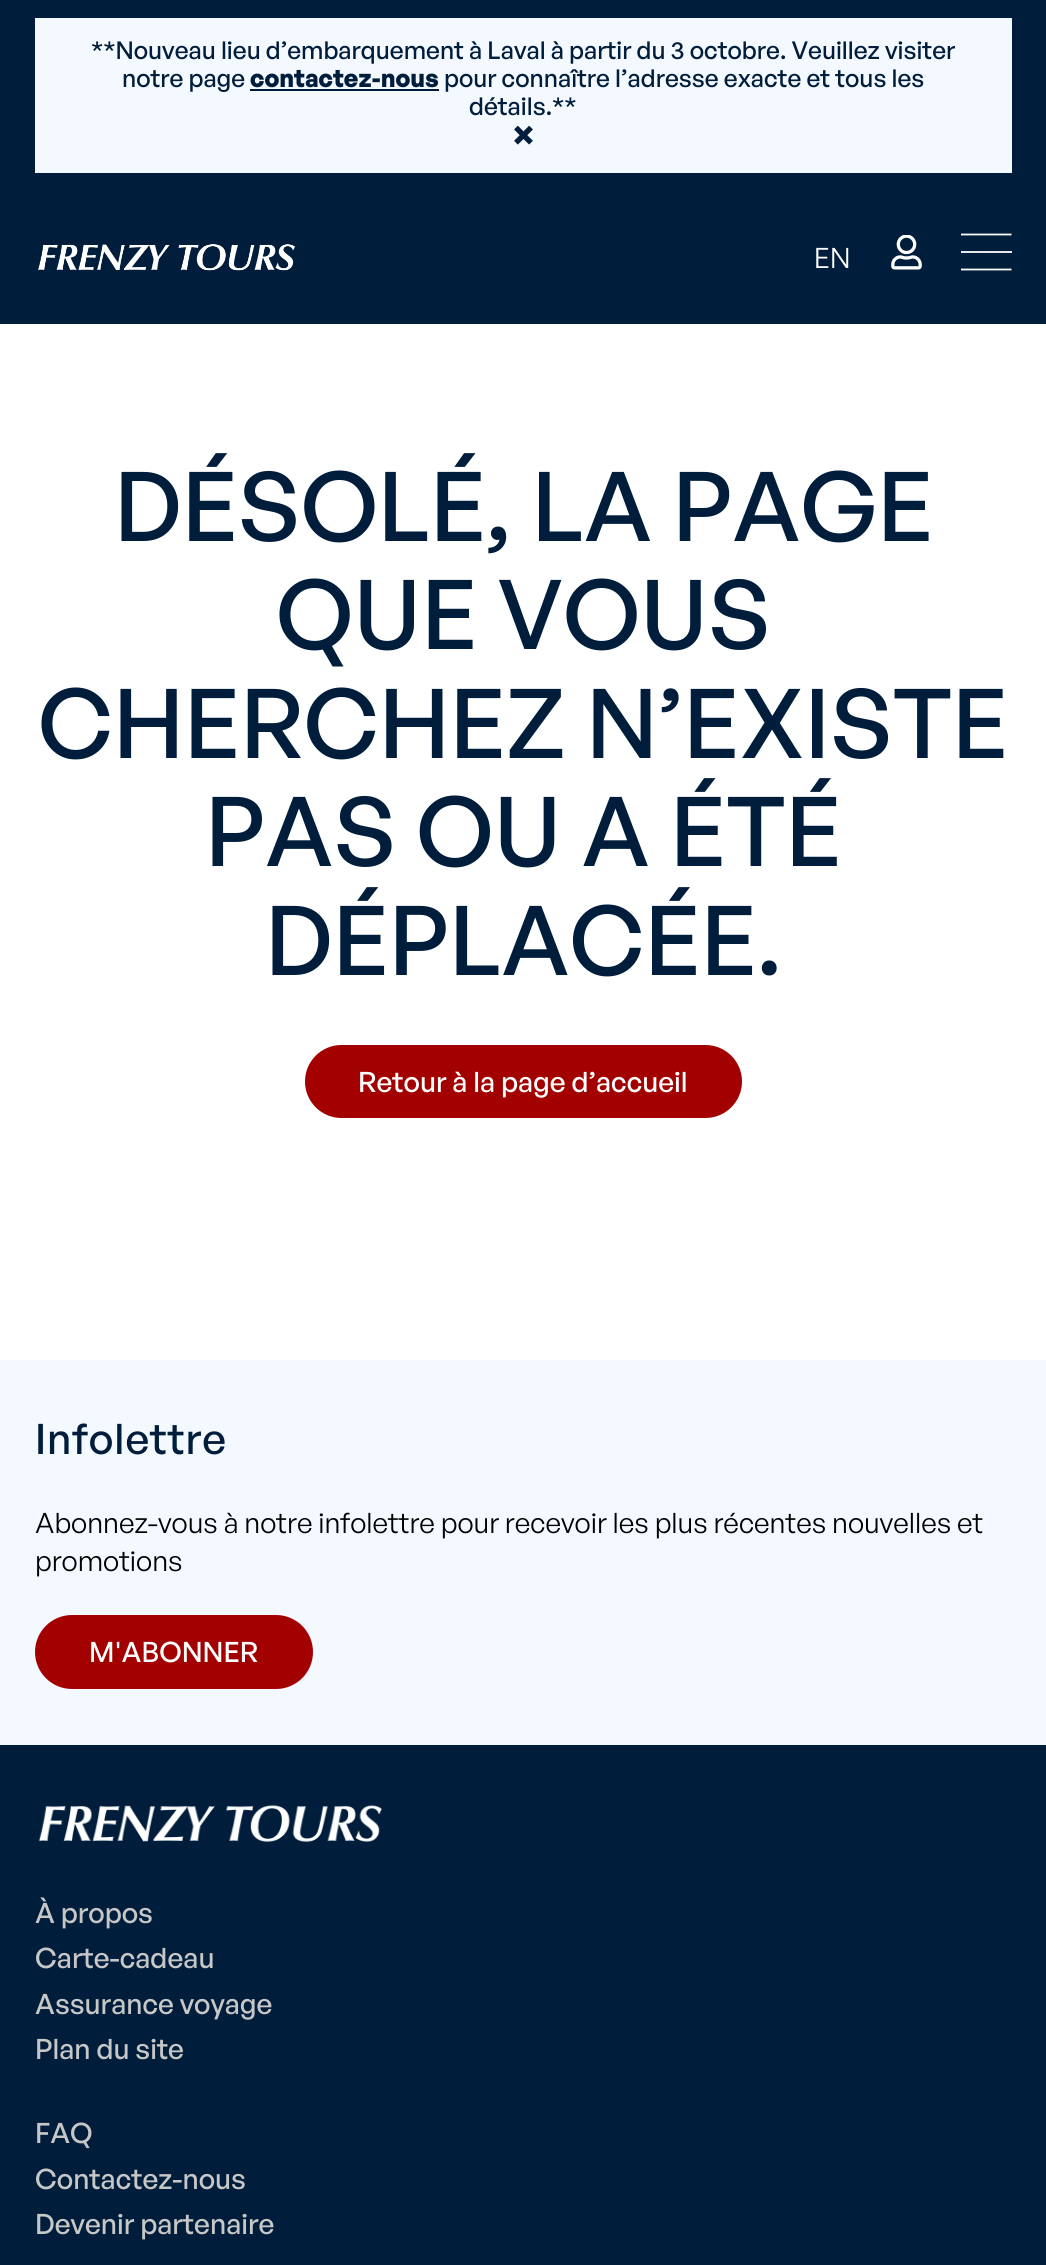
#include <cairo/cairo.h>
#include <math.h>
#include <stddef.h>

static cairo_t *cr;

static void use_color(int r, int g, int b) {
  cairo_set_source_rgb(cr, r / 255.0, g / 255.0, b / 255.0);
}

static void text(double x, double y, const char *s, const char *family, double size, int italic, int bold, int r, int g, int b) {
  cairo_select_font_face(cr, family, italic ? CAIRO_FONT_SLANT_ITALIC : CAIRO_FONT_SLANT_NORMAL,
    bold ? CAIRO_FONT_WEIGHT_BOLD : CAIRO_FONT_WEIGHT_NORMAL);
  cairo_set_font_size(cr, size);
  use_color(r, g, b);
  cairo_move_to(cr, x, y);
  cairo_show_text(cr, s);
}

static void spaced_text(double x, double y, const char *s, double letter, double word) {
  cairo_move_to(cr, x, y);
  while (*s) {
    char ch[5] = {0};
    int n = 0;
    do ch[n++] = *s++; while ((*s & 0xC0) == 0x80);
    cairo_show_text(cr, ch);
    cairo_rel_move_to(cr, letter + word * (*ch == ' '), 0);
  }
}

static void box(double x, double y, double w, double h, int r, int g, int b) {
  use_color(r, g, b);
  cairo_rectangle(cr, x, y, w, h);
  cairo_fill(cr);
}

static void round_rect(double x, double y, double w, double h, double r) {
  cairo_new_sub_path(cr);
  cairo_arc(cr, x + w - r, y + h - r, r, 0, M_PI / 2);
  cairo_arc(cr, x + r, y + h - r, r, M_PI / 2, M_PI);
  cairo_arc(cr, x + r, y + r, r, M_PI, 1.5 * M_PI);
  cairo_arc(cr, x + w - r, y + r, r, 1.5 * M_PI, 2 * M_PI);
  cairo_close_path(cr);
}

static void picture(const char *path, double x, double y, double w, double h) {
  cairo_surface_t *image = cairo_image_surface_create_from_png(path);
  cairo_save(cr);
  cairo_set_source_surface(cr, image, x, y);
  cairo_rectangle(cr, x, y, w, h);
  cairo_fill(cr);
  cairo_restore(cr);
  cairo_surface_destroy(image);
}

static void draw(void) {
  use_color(255, 255, 255);
  cairo_paint(cr);
  box(0, 0, 1046, 324, 0, 29, 59);
  box(35, 18, 977, 155, 243, 249, 255);
  box(250, 89, 189, 2, 0, 29, 59);
  picture("img_01.png", 38, 244, 257, 27);
  picture("img_02.png", 891, 235, 31, 35);
  cairo_new_path(cr);
  cairo_move_to(cr, 961, 234.5);
  cairo_line_to(cr, 1011.5, 234.5);
  use_color(255, 255, 255);
  cairo_set_line_width(cr, 1.8);
  cairo_stroke(cr);
  box(961, 251, 51, 2, 230, 232, 235);
  cairo_new_path(cr);
  cairo_move_to(cr, 961, 269.5);
  cairo_line_to(cr, 1011.5, 269.5);
  use_color(255, 255, 255);
  cairo_stroke(cr);
  use_color(163, 0, 0);
  round_rect(306, 1046, 435, 71, 35.5);
  cairo_fill_preserve(cr);
  cairo_set_line_width(cr, 2);
  cairo_stroke(cr);
  box(0, 1360, 1046, 385, 243, 249, 255);
  use_color(163, 0, 0);
  round_rect(36, 1616, 276, 72, 36);
  cairo_fill_preserve(cr);
  cairo_stroke(cr);
  box(0, 1745, 1046, 520, 0, 29, 59);
  picture("img_03.png", 38, 1805, 345, 37);
  text(91, 59, "**Nouveau lieu d’embarquement à Laval à partir du 3 octobre. Veuillez visiter", "General Sans Medium", 24.5, 0, 0, 0, 29, 59);
  text(122, 87, "notre page", "General Sans Medium", 24.5, 0, 0, 0, 29, 59);
  text(250, 87, "contactez-nous", "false", 24.5, 0, 1, 0, 29, 59);
  text(444, 87, "pour connaître l’adresse exacte et tous les", "General Sans Medium", 24.5, 0, 0, 0, 29, 59);
  text(469, 115, "détails.**", "General Sans Medium", 24.5, 0, 0, 0, 29, 59);
  text(511, 148, "×", "false", 38, 0, 1, 0, 29, 59);
  text(814, 268, "EN", "false", 28, 0, 0, 255, 255, 255);
  text(114, 541, "DÉSOLÉ, LA PAGE", "General Sans Medium", 96.25, 0, 0, 0, 29, 59);
  text(276, 649, "QUE VOUS", "General Sans Medium", 96.25, 0, 0, 0, 29, 59);
  text(38, 758, "CHERCHEZ N’EXISTE", "General Sans Medium", 96.25, 0, 0, 0, 29, 59);
  text(205, 866, "PAS OU A ÉTÉ", "General Sans Medium", 96.25, 0, 0, 0, 29, 59);
  text(265, 975, "DÉPLACÉE.", "General Sans Medium", 96.25, 0, 0, 0, 29, 59);
  text(358, 1092, "Retour à la page d’accueil", "General Sans Medium", 28, 0, 0, 255, 255, 255);
  cairo_set_font_size(cr, 42);
  use_color(0, 29, 59);
  spaced_text(35, 1454, "Infolettre", 0.9, 0);
  text(35, 1533, "Abonnez-vous à notre infolettre pour recevoir les plus récentes nouvelles et", "false", 28, 0, 0, 0, 0, 0);
  text(35, 1571, "promotions", "false", 28, 0, 0, 0, 0, 0);
  text(89, 1662, "M'ABONNER", "General Sans Medium", 28, 0, 0, 255, 255, 255);
  text(35, 1923, "À propos", "General Sans Medium", 28, 0, 0, 199, 199, 199);
  text(35, 1968, "Carte-cadeau", "General Sans Medium", 28, 0, 0, 199, 199, 199);
  text(35, 2014, "Assurance voyage", "General Sans Medium", 28, 0, 0, 199, 199, 199);
  text(35, 2059, "Plan du site", "General Sans Medium", 28, 0, 0, 199, 199, 199);
  text(35, 2143, "FAQ", "General Sans Medium", 28, 0, 0, 199, 199, 199);
  text(35, 2189, "Contactez-nous", "General Sans Medium", 28, 0, 0, 199, 199, 199);
  text(35, 2234, "Devenir partenaire", "General Sans Medium", 28, 0, 0, 199, 199, 199);
}

int main(void) {
  cairo_surface_t *surface = cairo_image_surface_create(CAIRO_FORMAT_RGB24, 1046, 2265);
  cr = cairo_create(surface);
  cairo_font_options_t *options = cairo_font_options_create();
  cairo_font_options_set_hint_metrics(options, CAIRO_HINT_METRICS_OFF);
  cairo_font_options_set_hint_style(options, CAIRO_HINT_STYLE_NONE);
  cairo_set_font_options(cr, options);
  cairo_set_miter_limit(cr, 4);
  draw();
  cairo_surface_write_to_png(surface, "out.png");
  cairo_font_options_destroy(options);
  cairo_destroy(cr);
  cairo_surface_destroy(surface);
  return 0;
}
